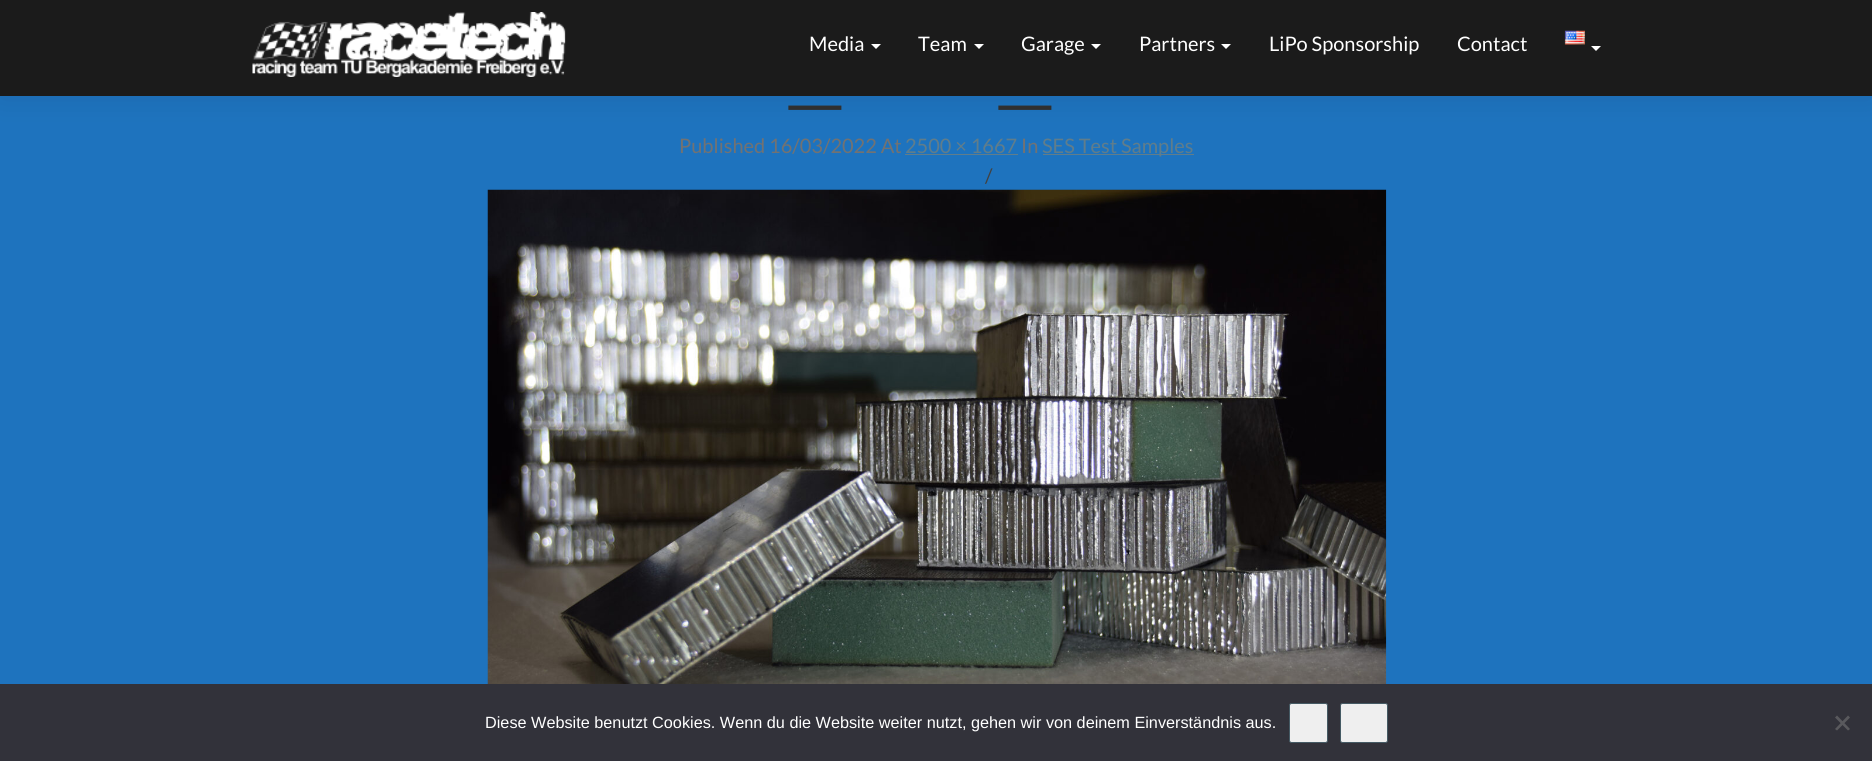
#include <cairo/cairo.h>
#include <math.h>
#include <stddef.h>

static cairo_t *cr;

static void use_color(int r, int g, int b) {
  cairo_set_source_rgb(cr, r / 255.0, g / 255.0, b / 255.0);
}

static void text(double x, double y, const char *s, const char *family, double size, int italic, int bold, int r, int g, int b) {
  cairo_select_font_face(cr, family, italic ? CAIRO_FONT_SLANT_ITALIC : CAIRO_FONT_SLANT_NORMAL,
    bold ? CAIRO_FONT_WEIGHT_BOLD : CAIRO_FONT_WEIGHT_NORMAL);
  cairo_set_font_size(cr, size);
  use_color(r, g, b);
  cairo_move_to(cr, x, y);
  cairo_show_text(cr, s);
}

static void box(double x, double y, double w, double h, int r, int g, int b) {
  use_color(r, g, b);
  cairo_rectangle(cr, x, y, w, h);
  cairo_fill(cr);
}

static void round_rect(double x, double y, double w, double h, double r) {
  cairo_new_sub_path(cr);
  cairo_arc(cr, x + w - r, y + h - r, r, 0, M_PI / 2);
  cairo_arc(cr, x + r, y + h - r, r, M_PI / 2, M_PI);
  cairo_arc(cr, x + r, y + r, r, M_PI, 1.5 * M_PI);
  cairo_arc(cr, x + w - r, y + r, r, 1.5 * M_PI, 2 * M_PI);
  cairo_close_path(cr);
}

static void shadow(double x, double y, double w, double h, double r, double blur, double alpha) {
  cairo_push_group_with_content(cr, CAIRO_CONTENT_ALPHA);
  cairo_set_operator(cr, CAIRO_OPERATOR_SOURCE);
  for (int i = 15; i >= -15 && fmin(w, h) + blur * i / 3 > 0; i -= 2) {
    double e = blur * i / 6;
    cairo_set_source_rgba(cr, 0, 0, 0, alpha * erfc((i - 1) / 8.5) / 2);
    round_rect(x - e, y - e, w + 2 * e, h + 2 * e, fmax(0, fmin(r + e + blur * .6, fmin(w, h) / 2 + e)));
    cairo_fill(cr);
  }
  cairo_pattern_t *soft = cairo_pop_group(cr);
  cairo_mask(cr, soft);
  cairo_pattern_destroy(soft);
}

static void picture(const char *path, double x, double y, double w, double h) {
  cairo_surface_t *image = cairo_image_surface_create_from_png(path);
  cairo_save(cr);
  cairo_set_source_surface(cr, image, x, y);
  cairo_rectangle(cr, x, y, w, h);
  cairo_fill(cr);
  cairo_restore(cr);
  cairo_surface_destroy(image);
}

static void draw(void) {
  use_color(30, 115, 190);
  cairo_paint(cr);
  use_color(0, 0, 0);
  shadow(0, 3, 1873, 96, 0, 15.5, 0.08);
  box(0, 0, 1872, 96, 27, 27, 27);
  picture("img_01.png", 252, 12, 314, 65);
  use_color(255, 255, 255);
  cairo_new_path(cr);
  cairo_move_to(cr, 871, 44);
  cairo_line_to(cr, 881, 44);
  cairo_line_to(cr, 876, 49);
  cairo_close_path(cr);
  cairo_fill(cr);
  cairo_new_path(cr);
  cairo_move_to(cr, 974, 44);
  cairo_line_to(cr, 984, 44);
  cairo_line_to(cr, 979, 49);
  cairo_close_path(cr);
  cairo_fill(cr);
  cairo_new_path(cr);
  cairo_move_to(cr, 1091, 44);
  cairo_line_to(cr, 1101, 44);
  cairo_line_to(cr, 1096, 49);
  cairo_close_path(cr);
  cairo_fill(cr);
  cairo_new_path(cr);
  cairo_move_to(cr, 1221, 44);
  cairo_line_to(cr, 1231, 44);
  cairo_line_to(cr, 1226, 49);
  cairo_close_path(cr);
  cairo_fill(cr);
  picture("img_02.png", 1564, 30, 21, 15);
  cairo_new_path(cr);
  cairo_move_to(cr, 1591, 46);
  cairo_line_to(cr, 1601, 46);
  cairo_line_to(cr, 1596, 51);
  cairo_close_path(cr);
  cairo_fill(cr);
  box(905, 154, 113, 1, 96, 125, 139);
  box(1043, 154, 151, 1, 96, 125, 139);
  picture("img_03.png", 487, 189, 900, 495);
  box(0, 684, 1872, 77, 50, 50, 58);
  use_color(239, 239, 239);
  round_rect(1289.5, 703.5, 38, 39, 2);
  cairo_fill_preserve(cr);
  use_color(69, 90, 100);
  cairo_set_line_width(cr, 1);
  cairo_stroke(cr);
  use_color(239, 239, 239);
  round_rect(1340.5, 703.5, 47, 39, 2);
  cairo_fill_preserve(cr);
  use_color(69, 90, 100);
  cairo_stroke(cr);
  use_color(89, 89, 93);
  cairo_new_path(cr);
  cairo_move_to(cr, 1848, 715.5);
  cairo_line_to(cr, 1850, 717.5);
  cairo_line_to(cr, 1837, 730.5);
  cairo_line_to(cr, 1835, 729);
  cairo_close_path(cr);
  cairo_fill(cr);
  cairo_new_path(cr);
  cairo_move_to(cr, 1835, 717.5);
  cairo_line_to(cr, 1837, 715.5);
  cairo_line_to(cr, 1850, 729);
  cairo_line_to(cr, 1848, 730.5);
  cairo_close_path(cr);
  cairo_fill(cr);
  text(809, 51, "Media", "Lato", 20, 0, 0, 255, 255, 255);
  text(918, 51, "Team", "Lato", 20, 0, 0, 255, 255, 255);
  text(1021, 51, "Garage", "Lato", 20, 0, 0, 255, 255, 255);
  text(1139, 51, "Partners", "Lato", 20, 0, 0, 255, 255, 255);
  text(1269, 51, "LiPo Sponsorship", "Lato", 20, 0, 0, 255, 255, 255);
  text(1457, 51, "Contact", "Lato", 20, 0, 0, 255, 255, 255);
  text(789, 98, "_", "Merriweather", 62, 0, 1, 47, 47, 47);
  text(999, 98, "_", "Merriweather", 62, 0, 1, 47, 47, 47);
  text(679, 153, "Published 16/03/2022 At", "Lato", 20, 0, 0, 114, 114, 114);
  text(905, 153, "2500 × 1667", "Lato", 20, 0, 0, 96, 125, 139);
  text(1021, 153, "In", "Lato", 20, 0, 0, 114, 114, 114);
  text(1042, 153, "SES Test Samples", "Lato", 20, 0, 0, 96, 125, 139);
  text(985, 183, "/", "Lato", 20, 0, 0, 66, 66, 66);
  text(485, 728, "Diese Website benutzt Cookies. Wenn du die Website weiter nutzt, gehen wir von deinem Einverständnis aus.", "Liberation Sans", 16.25, 0, 0, 255, 255, 255);
}

int main(void) {
  cairo_surface_t *surface = cairo_image_surface_create(CAIRO_FORMAT_RGB24, 1872, 761);
  cr = cairo_create(surface);
  cairo_font_options_t *options = cairo_font_options_create();
  cairo_font_options_set_hint_metrics(options, CAIRO_HINT_METRICS_OFF);
  cairo_font_options_set_hint_style(options, CAIRO_HINT_STYLE_NONE);
  cairo_set_font_options(cr, options);
  cairo_set_miter_limit(cr, 4);
  draw();
  cairo_surface_write_to_png(surface, "out.png");
  cairo_font_options_destroy(options);
  cairo_destroy(cr);
  cairo_surface_destroy(surface);
  return 0;
}
